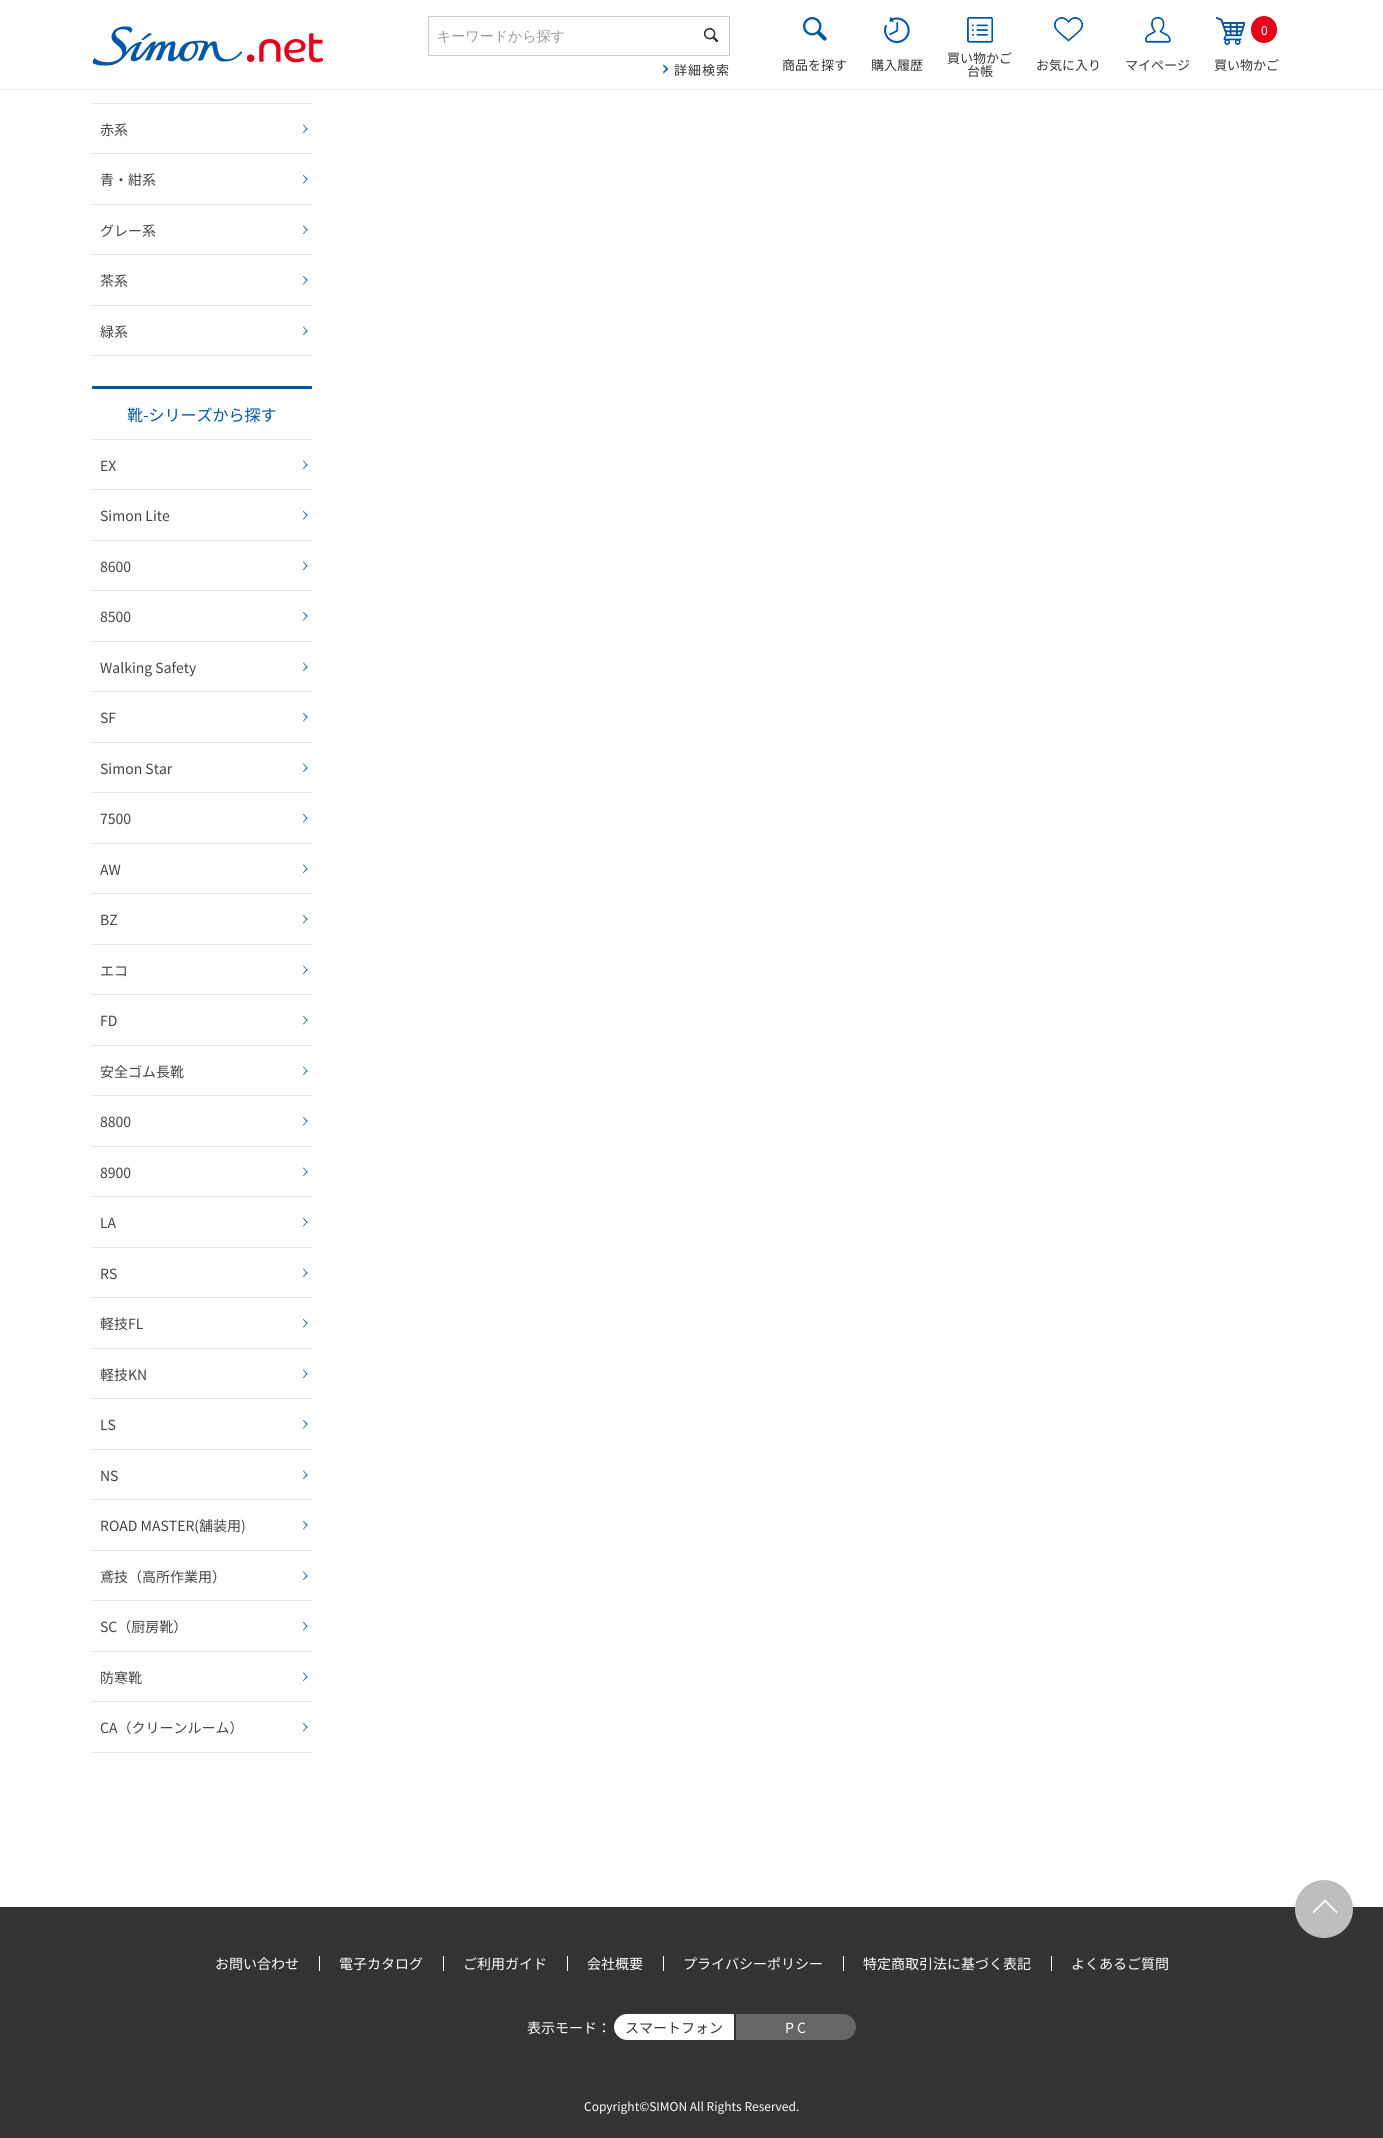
#include <cairo/cairo.h>
#include <math.h>
#include <stddef.h>

static cairo_t *cr;

static void use_color(int r, int g, int b) {
  cairo_set_source_rgb(cr, r / 255.0, g / 255.0, b / 255.0);
}

static void text(double x, double y, const char *s, const char *family, double size, int italic, int bold, int r, int g, int b) {
  cairo_select_font_face(cr, family, italic ? CAIRO_FONT_SLANT_ITALIC : CAIRO_FONT_SLANT_NORMAL,
    bold ? CAIRO_FONT_WEIGHT_BOLD : CAIRO_FONT_WEIGHT_NORMAL);
  cairo_set_font_size(cr, size);
  use_color(r, g, b);
  cairo_move_to(cr, x, y);
  cairo_show_text(cr, s);
}

static void spaced_text(double x, double y, const char *s, double letter, double word) {
  cairo_move_to(cr, x, y);
  while (*s) {
    char ch[5] = {0};
    int n = 0;
    do ch[n++] = *s++; while ((*s & 0xC0) == 0x80);
    cairo_show_text(cr, ch);
    cairo_rel_move_to(cr, letter + word * (*ch == ' '), 0);
  }
}

static void box(double x, double y, double w, double h, int r, int g, int b) {
  use_color(r, g, b);
  cairo_rectangle(cr, x, y, w, h);
  cairo_fill(cr);
}

static void round_rect(double x, double y, double w, double h, double r) {
  cairo_new_sub_path(cr);
  cairo_arc(cr, x + w - r, y + h - r, r, 0, M_PI / 2);
  cairo_arc(cr, x + r, y + h - r, r, M_PI / 2, M_PI);
  cairo_arc(cr, x + r, y + r, r, M_PI, 1.5 * M_PI);
  cairo_arc(cr, x + w - r, y + r, r, 1.5 * M_PI, 2 * M_PI);
  cairo_close_path(cr);
}

static void picture(const char *path, double x, double y, double w, double h) {
  cairo_surface_t *image = cairo_image_surface_create_from_png(path);
  cairo_save(cr);
  cairo_set_source_surface(cr, image, x, y);
  cairo_rectangle(cr, x, y, w, h);
  cairo_fill(cr);
  cairo_restore(cr);
  cairo_surface_destroy(image);
}

static void draw(void) {
  use_color(255, 255, 255);
  cairo_paint(cr);
  box(0, 89, 1383, 1, 238, 238, 238);
  picture("img_01.png", 92, 26, 232, 40);
  cairo_rectangle(cr, 428.5, 16.5, 301, 39);
  use_color(204, 204, 204);
  cairo_set_line_width(cr, 1);
  cairo_stroke(cr);
  picture("img_02.png", 704, 28, 14, 14);
  use_color(0, 87, 164);
  cairo_new_path(cr);
  cairo_move_to(cr, 663, 65);
  cairo_line_to(cr, 663.5, 64.5);
  cairo_line_to(cr, 668, 68.5);
  cairo_line_to(cr, 667, 69);
  cairo_close_path(cr);
  cairo_fill(cr);
  cairo_new_path(cr);
  cairo_move_to(cr, 663, 72);
  cairo_line_to(cr, 667, 68);
  cairo_line_to(cr, 668, 68.5);
  cairo_line_to(cr, 663.5, 72.5);
  cairo_close_path(cr);
  cairo_fill(cr);
  cairo_new_path(cr);
  cairo_move_to(cr, 663, 66);
  cairo_line_to(cr, 663.5, 65.5);
  cairo_line_to(cr, 668, 69.5);
  cairo_line_to(cr, 667, 70);
  cairo_close_path(cr);
  cairo_fill(cr);
  cairo_new_path(cr);
  cairo_move_to(cr, 663, 73);
  cairo_line_to(cr, 667, 69);
  cairo_line_to(cr, 668, 69.5);
  cairo_line_to(cr, 663.5, 73.5);
  cairo_close_path(cr);
  cairo_fill(cr);
  picture("img_03.png", 803, 17, 24, 24);
  picture("img_04.png", 884, 17, 26, 26);
  picture("img_05.png", 967, 17, 26, 26);
  picture("img_06.png", 1054, 17, 29, 25);
  picture("img_07.png", 1145, 17, 26, 26);
  picture("img_08.png", 1216, 17, 29, 28);
  use_color(230, 0, 26);
  round_rect(1251, 16, 26, 27, 13);
  cairo_fill(cr);
  box(92, 103, 220, 1, 229, 229, 229);
  box(92, 153, 220, 1, 229, 229, 229);
  use_color(0, 87, 164);
  cairo_new_path(cr);
  cairo_move_to(cr, 303, 125);
  cairo_line_to(cr, 303.5, 124.5);
  cairo_line_to(cr, 307.5, 129);
  cairo_line_to(cr, 307, 129.5);
  cairo_close_path(cr);
  cairo_fill(cr);
  cairo_new_path(cr);
  cairo_move_to(cr, 303, 132.5);
  cairo_line_to(cr, 307, 128);
  cairo_line_to(cr, 307.5, 129);
  cairo_line_to(cr, 303.5, 133);
  cairo_close_path(cr);
  cairo_fill(cr);
  box(92, 204, 220, 1, 229, 229, 229);
  use_color(0, 87, 164);
  cairo_new_path(cr);
  cairo_move_to(cr, 303, 175.5);
  cairo_line_to(cr, 303.5, 175);
  cairo_line_to(cr, 307.5, 179);
  cairo_line_to(cr, 307, 180);
  cairo_close_path(cr);
  cairo_fill(cr);
  cairo_new_path(cr);
  cairo_move_to(cr, 303, 183);
  cairo_line_to(cr, 307, 178.5);
  cairo_line_to(cr, 307.5, 179);
  cairo_line_to(cr, 303.5, 183.5);
  cairo_close_path(cr);
  cairo_fill(cr);
  box(92, 254, 220, 1, 229, 229, 229);
  use_color(0, 87, 164);
  cairo_new_path(cr);
  cairo_move_to(cr, 303, 226);
  cairo_line_to(cr, 303.5, 225.5);
  cairo_line_to(cr, 307.5, 229.5);
  cairo_line_to(cr, 307, 230.5);
  cairo_close_path(cr);
  cairo_fill(cr);
  cairo_new_path(cr);
  cairo_move_to(cr, 303, 233.5);
  cairo_line_to(cr, 307, 229);
  cairo_line_to(cr, 307.5, 229.5);
  cairo_line_to(cr, 303.5, 234);
  cairo_close_path(cr);
  cairo_fill(cr);
  box(92, 305, 220, 1, 229, 229, 229);
  use_color(0, 87, 164);
  cairo_new_path(cr);
  cairo_move_to(cr, 303, 276.5);
  cairo_line_to(cr, 303.5, 276);
  cairo_line_to(cr, 307.5, 280);
  cairo_line_to(cr, 307, 281);
  cairo_close_path(cr);
  cairo_fill(cr);
  cairo_new_path(cr);
  cairo_move_to(cr, 303, 284);
  cairo_line_to(cr, 307, 279.5);
  cairo_line_to(cr, 307.5, 280);
  cairo_line_to(cr, 303.5, 284.5);
  cairo_close_path(cr);
  cairo_fill(cr);
  box(92, 355, 220, 1, 229, 229, 229);
  use_color(0, 87, 164);
  cairo_new_path(cr);
  cairo_move_to(cr, 303, 327);
  cairo_line_to(cr, 303.5, 326.5);
  cairo_line_to(cr, 307.5, 331);
  cairo_line_to(cr, 307, 331.5);
  cairo_close_path(cr);
  cairo_fill(cr);
  cairo_new_path(cr);
  cairo_move_to(cr, 303, 334.5);
  cairo_line_to(cr, 307, 330);
  cairo_line_to(cr, 307.5, 331);
  cairo_line_to(cr, 303.5, 335);
  cairo_close_path(cr);
  cairo_fill(cr);
  box(92, 386, 220, 3, 0, 87, 164);
  box(92, 439, 220, 1, 229, 229, 229);
  box(92, 489, 220, 1, 229, 229, 229);
  use_color(0, 87, 164);
  cairo_new_path(cr);
  cairo_move_to(cr, 303, 461);
  cairo_line_to(cr, 303.5, 460.5);
  cairo_line_to(cr, 307.5, 465);
  cairo_line_to(cr, 307, 465.5);
  cairo_close_path(cr);
  cairo_fill(cr);
  cairo_new_path(cr);
  cairo_move_to(cr, 303, 468.5);
  cairo_line_to(cr, 307, 464);
  cairo_line_to(cr, 307.5, 465);
  cairo_line_to(cr, 303.5, 469);
  cairo_close_path(cr);
  cairo_fill(cr);
  box(92, 540, 220, 1, 229, 229, 229);
  use_color(0, 87, 164);
  cairo_new_path(cr);
  cairo_move_to(cr, 303, 511.5);
  cairo_line_to(cr, 303.5, 511);
  cairo_line_to(cr, 307.5, 515);
  cairo_line_to(cr, 307, 516);
  cairo_close_path(cr);
  cairo_fill(cr);
  cairo_new_path(cr);
  cairo_move_to(cr, 303, 519);
  cairo_line_to(cr, 307, 514.5);
  cairo_line_to(cr, 307.5, 515);
  cairo_line_to(cr, 303.5, 519.5);
  cairo_close_path(cr);
  cairo_fill(cr);
  box(92, 590, 220, 1, 229, 229, 229);
  use_color(0, 87, 164);
  cairo_new_path(cr);
  cairo_move_to(cr, 303, 562);
  cairo_line_to(cr, 303.5, 561.5);
  cairo_line_to(cr, 307.5, 566);
  cairo_line_to(cr, 307, 566.5);
  cairo_close_path(cr);
  cairo_fill(cr);
  cairo_new_path(cr);
  cairo_move_to(cr, 303, 569.5);
  cairo_line_to(cr, 307, 565);
  cairo_line_to(cr, 307.5, 566);
  cairo_line_to(cr, 303.5, 570);
  cairo_close_path(cr);
  cairo_fill(cr);
  box(92, 641, 220, 1, 229, 229, 229);
  use_color(0, 87, 164);
  cairo_new_path(cr);
  cairo_move_to(cr, 303, 612.5);
  cairo_line_to(cr, 303.5, 612);
  cairo_line_to(cr, 307.5, 616);
  cairo_line_to(cr, 307, 617);
  cairo_close_path(cr);
  cairo_fill(cr);
  cairo_new_path(cr);
  cairo_move_to(cr, 303, 620);
  cairo_line_to(cr, 307, 615.5);
  cairo_line_to(cr, 307.5, 616);
  cairo_line_to(cr, 303.5, 620.5);
  cairo_close_path(cr);
  cairo_fill(cr);
  box(92, 691, 220, 1, 229, 229, 229);
  use_color(0, 87, 164);
  cairo_new_path(cr);
  cairo_move_to(cr, 303, 663);
  cairo_line_to(cr, 303.5, 662.5);
  cairo_line_to(cr, 307.5, 667);
  cairo_line_to(cr, 307, 667.5);
  cairo_close_path(cr);
  cairo_fill(cr);
  cairo_new_path(cr);
  cairo_move_to(cr, 303, 670.5);
  cairo_line_to(cr, 307, 666);
  cairo_line_to(cr, 307.5, 667);
  cairo_line_to(cr, 303.5, 671);
  cairo_close_path(cr);
  cairo_fill(cr);
  box(92, 742, 220, 1, 229, 229, 229);
  use_color(0, 87, 164);
  cairo_new_path(cr);
  cairo_move_to(cr, 303, 713.5);
  cairo_line_to(cr, 303.5, 713);
  cairo_line_to(cr, 307.5, 717);
  cairo_line_to(cr, 307, 718);
  cairo_close_path(cr);
  cairo_fill(cr);
  cairo_new_path(cr);
  cairo_move_to(cr, 303, 721);
  cairo_line_to(cr, 307, 716.5);
  cairo_line_to(cr, 307.5, 717);
  cairo_line_to(cr, 303.5, 721.5);
  cairo_close_path(cr);
  cairo_fill(cr);
  box(92, 792, 220, 1, 229, 229, 229);
  use_color(0, 87, 164);
  cairo_new_path(cr);
  cairo_move_to(cr, 303, 764);
  cairo_line_to(cr, 303.5, 763.5);
  cairo_line_to(cr, 307.5, 768);
  cairo_line_to(cr, 307, 768.5);
  cairo_close_path(cr);
  cairo_fill(cr);
  cairo_new_path(cr);
  cairo_move_to(cr, 303, 771.5);
  cairo_line_to(cr, 307, 767);
  cairo_line_to(cr, 307.5, 768);
  cairo_line_to(cr, 303.5, 772);
  cairo_close_path(cr);
  cairo_fill(cr);
  box(92, 843, 220, 1, 229, 229, 229);
  use_color(0, 87, 164);
  cairo_new_path(cr);
  cairo_move_to(cr, 303, 814.5);
  cairo_line_to(cr, 303.5, 814);
  cairo_line_to(cr, 307.5, 818);
  cairo_line_to(cr, 307, 819);
  cairo_close_path(cr);
  cairo_fill(cr);
  cairo_new_path(cr);
  cairo_move_to(cr, 303, 822);
  cairo_line_to(cr, 307, 817.5);
  cairo_line_to(cr, 307.5, 818);
  cairo_line_to(cr, 303.5, 822.5);
  cairo_close_path(cr);
  cairo_fill(cr);
  box(92, 893, 220, 1, 229, 229, 229);
  use_color(0, 87, 164);
  cairo_new_path(cr);
  cairo_move_to(cr, 303, 865);
  cairo_line_to(cr, 303.5, 864.5);
  cairo_line_to(cr, 307.5, 869);
  cairo_line_to(cr, 307, 869.5);
  cairo_close_path(cr);
  cairo_fill(cr);
  cairo_new_path(cr);
  cairo_move_to(cr, 303, 872.5);
  cairo_line_to(cr, 307, 868);
  cairo_line_to(cr, 307.5, 869);
  cairo_line_to(cr, 303.5, 873);
  cairo_close_path(cr);
  cairo_fill(cr);
  box(92, 944, 220, 1, 229, 229, 229);
  use_color(0, 87, 164);
  cairo_new_path(cr);
  cairo_move_to(cr, 303, 915.5);
  cairo_line_to(cr, 303.5, 915);
  cairo_line_to(cr, 307.5, 919);
  cairo_line_to(cr, 307, 920);
  cairo_close_path(cr);
  cairo_fill(cr);
  cairo_new_path(cr);
  cairo_move_to(cr, 303, 923);
  cairo_line_to(cr, 307, 918.5);
  cairo_line_to(cr, 307.5, 919);
  cairo_line_to(cr, 303.5, 923.5);
  cairo_close_path(cr);
  cairo_fill(cr);
  box(92, 994, 220, 1, 229, 229, 229);
  use_color(0, 87, 164);
  cairo_new_path(cr);
  cairo_move_to(cr, 303, 966);
  cairo_line_to(cr, 303.5, 965.5);
  cairo_line_to(cr, 307.5, 970);
  cairo_line_to(cr, 307, 970.5);
  cairo_close_path(cr);
  cairo_fill(cr);
  cairo_new_path(cr);
  cairo_move_to(cr, 303, 973.5);
  cairo_line_to(cr, 307, 969);
  cairo_line_to(cr, 307.5, 970);
  cairo_line_to(cr, 303.5, 974);
  cairo_close_path(cr);
  cairo_fill(cr);
  box(92, 1045, 220, 1, 229, 229, 229);
  use_color(0, 87, 164);
  cairo_new_path(cr);
  cairo_move_to(cr, 303, 1016.5);
  cairo_line_to(cr, 303.5, 1016);
  cairo_line_to(cr, 307.5, 1020);
  cairo_line_to(cr, 307, 1021);
  cairo_close_path(cr);
  cairo_fill(cr);
  cairo_new_path(cr);
  cairo_move_to(cr, 303, 1024);
  cairo_line_to(cr, 307, 1019.5);
  cairo_line_to(cr, 307.5, 1020);
  cairo_line_to(cr, 303.5, 1024.5);
  cairo_close_path(cr);
  cairo_fill(cr);
  box(92, 1095, 220, 1, 229, 229, 229);
  use_color(0, 87, 164);
  cairo_new_path(cr);
  cairo_move_to(cr, 303, 1067);
  cairo_line_to(cr, 303.5, 1066.5);
  cairo_line_to(cr, 307.5, 1071);
  cairo_line_to(cr, 307, 1071.5);
  cairo_close_path(cr);
  cairo_fill(cr);
  cairo_new_path(cr);
  cairo_move_to(cr, 303, 1074.5);
  cairo_line_to(cr, 307, 1070);
  cairo_line_to(cr, 307.5, 1071);
  cairo_line_to(cr, 303.5, 1075);
  cairo_close_path(cr);
  cairo_fill(cr);
  box(92, 1146, 220, 1, 229, 229, 229);
  use_color(0, 87, 164);
  cairo_new_path(cr);
  cairo_move_to(cr, 303, 1117.5);
  cairo_line_to(cr, 303.5, 1117);
  cairo_line_to(cr, 307.5, 1121);
  cairo_line_to(cr, 307, 1122);
  cairo_close_path(cr);
  cairo_fill(cr);
  cairo_new_path(cr);
  cairo_move_to(cr, 303, 1125);
  cairo_line_to(cr, 307, 1120.5);
  cairo_line_to(cr, 307.5, 1121);
  cairo_line_to(cr, 303.5, 1125.5);
  cairo_close_path(cr);
  cairo_fill(cr);
  box(92, 1196, 220, 1, 229, 229, 229);
  use_color(0, 87, 164);
  cairo_new_path(cr);
  cairo_move_to(cr, 303, 1168);
  cairo_line_to(cr, 303.5, 1167.5);
  cairo_line_to(cr, 307.5, 1172);
  cairo_line_to(cr, 307, 1172.5);
  cairo_close_path(cr);
  cairo_fill(cr);
  cairo_new_path(cr);
  cairo_move_to(cr, 303, 1175.5);
  cairo_line_to(cr, 307, 1171);
  cairo_line_to(cr, 307.5, 1172);
  cairo_line_to(cr, 303.5, 1176);
  cairo_close_path(cr);
  cairo_fill(cr);
  box(92, 1247, 220, 1, 229, 229, 229);
  use_color(0, 87, 164);
  cairo_new_path(cr);
  cairo_move_to(cr, 303, 1218.5);
  cairo_line_to(cr, 303.5, 1218);
  cairo_line_to(cr, 307.5, 1222);
  cairo_line_to(cr, 307, 1223);
  cairo_close_path(cr);
  cairo_fill(cr);
  cairo_new_path(cr);
  cairo_move_to(cr, 303, 1226);
  cairo_line_to(cr, 307, 1221.5);
  cairo_line_to(cr, 307.5, 1222);
  cairo_line_to(cr, 303.5, 1226.5);
  cairo_close_path(cr);
  cairo_fill(cr);
  box(92, 1297, 220, 1, 229, 229, 229);
  use_color(0, 87, 164);
  cairo_new_path(cr);
  cairo_move_to(cr, 303, 1269);
  cairo_line_to(cr, 303.5, 1268.5);
  cairo_line_to(cr, 307.5, 1273);
  cairo_line_to(cr, 307, 1273.5);
  cairo_close_path(cr);
  cairo_fill(cr);
  cairo_new_path(cr);
  cairo_move_to(cr, 303, 1276.5);
  cairo_line_to(cr, 307, 1272);
  cairo_line_to(cr, 307.5, 1273);
  cairo_line_to(cr, 303.5, 1277);
  cairo_close_path(cr);
  cairo_fill(cr);
  box(92, 1348, 220, 1, 229, 229, 229);
  use_color(0, 87, 164);
  cairo_new_path(cr);
  cairo_move_to(cr, 303, 1319.5);
  cairo_line_to(cr, 303.5, 1319);
  cairo_line_to(cr, 307.5, 1323);
  cairo_line_to(cr, 307, 1324);
  cairo_close_path(cr);
  cairo_fill(cr);
  cairo_new_path(cr);
  cairo_move_to(cr, 303, 1327);
  cairo_line_to(cr, 307, 1322.5);
  cairo_line_to(cr, 307.5, 1323);
  cairo_line_to(cr, 303.5, 1327.5);
  cairo_close_path(cr);
  cairo_fill(cr);
  box(92, 1398, 220, 1, 229, 229, 229);
  use_color(0, 87, 164);
  cairo_new_path(cr);
  cairo_move_to(cr, 303, 1370);
  cairo_line_to(cr, 303.5, 1369.5);
  cairo_line_to(cr, 307.5, 1374);
  cairo_line_to(cr, 307, 1374.5);
  cairo_close_path(cr);
  cairo_fill(cr);
  cairo_new_path(cr);
  cairo_move_to(cr, 303, 1377.5);
  cairo_line_to(cr, 307, 1373);
  cairo_line_to(cr, 307.5, 1374);
  cairo_line_to(cr, 303.5, 1378);
  cairo_close_path(cr);
  cairo_fill(cr);
  box(92, 1449, 220, 1, 229, 229, 229);
  use_color(0, 87, 164);
  cairo_new_path(cr);
  cairo_move_to(cr, 303, 1420.5);
  cairo_line_to(cr, 303.5, 1420);
  cairo_line_to(cr, 307.5, 1424);
  cairo_line_to(cr, 307, 1425);
  cairo_close_path(cr);
  cairo_fill(cr);
  cairo_new_path(cr);
  cairo_move_to(cr, 303, 1428);
  cairo_line_to(cr, 307, 1423.5);
  cairo_line_to(cr, 307.5, 1424);
  cairo_line_to(cr, 303.5, 1428.5);
  cairo_close_path(cr);
  cairo_fill(cr);
  box(92, 1499, 220, 1, 229, 229, 229);
  use_color(0, 87, 164);
  cairo_new_path(cr);
  cairo_move_to(cr, 303, 1471);
  cairo_line_to(cr, 303.5, 1470.5);
  cairo_line_to(cr, 307.5, 1475);
  cairo_line_to(cr, 307, 1475.5);
  cairo_close_path(cr);
  cairo_fill(cr);
  cairo_new_path(cr);
  cairo_move_to(cr, 303, 1478.5);
  cairo_line_to(cr, 307, 1474);
  cairo_line_to(cr, 307.5, 1475);
  cairo_line_to(cr, 303.5, 1479);
  cairo_close_path(cr);
  cairo_fill(cr);
  box(92, 1550, 220, 1, 229, 229, 229);
  use_color(0, 87, 164);
  cairo_new_path(cr);
  cairo_move_to(cr, 303, 1521.5);
  cairo_line_to(cr, 303.5, 1521);
  cairo_line_to(cr, 307.5, 1525);
  cairo_line_to(cr, 307, 1526);
  cairo_close_path(cr);
  cairo_fill(cr);
  cairo_new_path(cr);
  cairo_move_to(cr, 303, 1529);
  cairo_line_to(cr, 307, 1524.5);
  cairo_line_to(cr, 307.5, 1525);
  cairo_line_to(cr, 303.5, 1529.5);
  cairo_close_path(cr);
  cairo_fill(cr);
  box(92, 1600, 220, 1, 229, 229, 229);
  use_color(0, 87, 164);
  cairo_new_path(cr);
  cairo_move_to(cr, 303, 1572);
  cairo_line_to(cr, 303.5, 1571.5);
  cairo_line_to(cr, 307.5, 1576);
  cairo_line_to(cr, 307, 1576.5);
  cairo_close_path(cr);
  cairo_fill(cr);
  cairo_new_path(cr);
  cairo_move_to(cr, 303, 1579.5);
  cairo_line_to(cr, 307, 1575);
  cairo_line_to(cr, 307.5, 1576);
  cairo_line_to(cr, 303.5, 1580);
  cairo_close_path(cr);
  cairo_fill(cr);
  box(92, 1651, 220, 1, 229, 229, 229);
  use_color(0, 87, 164);
  cairo_new_path(cr);
  cairo_move_to(cr, 303, 1622.5);
  cairo_line_to(cr, 303.5, 1622);
  cairo_line_to(cr, 307.5, 1626);
  cairo_line_to(cr, 307, 1627);
  cairo_close_path(cr);
  cairo_fill(cr);
  cairo_new_path(cr);
  cairo_move_to(cr, 303, 1630);
  cairo_line_to(cr, 307, 1625.5);
  cairo_line_to(cr, 307.5, 1626);
  cairo_line_to(cr, 303.5, 1630.5);
  cairo_close_path(cr);
  cairo_fill(cr);
  box(92, 1701, 220, 1, 229, 229, 229);
  use_color(0, 87, 164);
  cairo_new_path(cr);
  cairo_move_to(cr, 303, 1673);
  cairo_line_to(cr, 303.5, 1672.5);
  cairo_line_to(cr, 307.5, 1677);
  cairo_line_to(cr, 307, 1677.5);
  cairo_close_path(cr);
  cairo_fill(cr);
  cairo_new_path(cr);
  cairo_move_to(cr, 303, 1680.5);
  cairo_line_to(cr, 307, 1676);
  cairo_line_to(cr, 307.5, 1677);
  cairo_line_to(cr, 303.5, 1681);
  cairo_close_path(cr);
  cairo_fill(cr);
  box(92, 1752, 220, 1, 229, 229, 229);
  use_color(0, 87, 164);
  cairo_new_path(cr);
  cairo_move_to(cr, 303, 1723.5);
  cairo_line_to(cr, 303.5, 1723);
  cairo_line_to(cr, 307.5, 1727);
  cairo_line_to(cr, 307, 1728);
  cairo_close_path(cr);
  cairo_fill(cr);
  cairo_new_path(cr);
  cairo_move_to(cr, 303, 1731);
  cairo_line_to(cr, 307, 1726.5);
  cairo_line_to(cr, 307.5, 1727);
  cairo_line_to(cr, 303.5, 1731.5);
  cairo_close_path(cr);
  cairo_fill(cr);
  box(0, 1907, 1383, 231, 51, 51, 51);
  use_color(190, 190, 190);
  cairo_arc(cr, 1324, 1909, 29, 0, 2 * M_PI);
  cairo_fill(cr);
  use_color(255, 255, 255);
  cairo_new_path(cr);
  cairo_move_to(cr, 1313.5, 1913.5);
  cairo_line_to(cr, 1312.5, 1912);
  cairo_line_to(cr, 1325, 1899.5);
  cairo_line_to(cr, 1326.5, 1900.5);
  cairo_close_path(cr);
  cairo_fill(cr);
  cairo_new_path(cr);
  cairo_move_to(cr, 1336.5, 1913.5);
  cairo_line_to(cr, 1323.5, 1900.5);
  cairo_line_to(cr, 1325, 1899.5);
  cairo_line_to(cr, 1337.5, 1912);
  cairo_close_path(cr);
  cairo_fill(cr);
  box(319, 1956, 1, 15, 255, 255, 255);
  box(443, 1956, 1, 15, 255, 255, 255);
  box(567, 1956, 1, 15, 255, 255, 255);
  box(663, 1956, 1, 15, 255, 255, 255);
  box(843, 1956, 1, 15, 255, 255, 255);
  box(1051, 1956, 1, 15, 255, 255, 255);
  cairo_new_path(cr);
  cairo_move_to(cr, 627, 2014);
  cairo_line_to(cr, 734, 2014);
  cairo_line_to(cr, 734, 2040);
  cairo_line_to(cr, 627, 2040);
  cairo_curve_to(cr, 620, 2040, 614, 2034, 614, 2027);
  cairo_curve_to(cr, 614, 2020, 620, 2014, 627, 2014);
  cairo_close_path(cr);
  cairo_fill(cr);
  use_color(102, 102, 102);
  cairo_new_path(cr);
  cairo_move_to(cr, 735, 2014);
  cairo_line_to(cr, 843, 2014);
  cairo_curve_to(cr, 850, 2014, 856, 2020, 856, 2027);
  cairo_curve_to(cr, 856, 2034, 850, 2040, 843, 2040);
  cairo_line_to(cr, 735, 2040);
  cairo_close_path(cr);
  cairo_fill(cr);
  box(735, 2014, 1, 26, 51, 51, 51);
  text(437, 41, "キーワードから探す", "WenQuanYi Zen Hei Medium", 14, 0, 0, 153, 153, 153);
  cairo_select_font_face(cr, "Noto Sans JP Thin", CAIRO_FONT_SLANT_NORMAL, CAIRO_FONT_WEIGHT_NORMAL);
  cairo_set_font_size(cr, 13);
  use_color(51, 51, 51);
  spaced_text(674, 75, "詳細検索", 1, 0);
  text(782, 70, "商品を探す", "Noto Sans JP Thin", 13, 0, 0, 51, 51, 51);
  text(871, 70, "購入履歴", "Noto Sans JP Thin", 13, 0, 0, 51, 51, 51);
  text(947, 63, "買い物かご", "Noto Sans JP Thin", 13, 0, 0, 51, 51, 51);
  text(967, 76, "台帳", "Noto Sans JP Thin", 13, 0, 0, 51, 51, 51);
  text(1036, 70, "お気に入り", "Noto Sans JP Thin", 13, 0, 0, 51, 51, 51);
  text(1125, 70, "マイページ", "Noto Sans JP Thin", 13, 0, 0, 51, 51, 51);
  text(1261, 35, "0", "Noto Sans JP Thin", 12, 0, 0, 255, 255, 255);
  text(1214, 70, "買い物かご", "Noto Sans JP Thin", 13, 0, 0, 51, 51, 51);
  text(100, 135, "赤系", "Noto Sans JP Thin", 14, 0, 0, 68, 68, 68);
  text(100, 185, "青・紺系", "Noto Sans JP Thin", 14, 0, 0, 68, 68, 68);
  text(100, 236, "グレー系", "Noto Sans JP Thin", 14, 0, 0, 68, 68, 68);
  text(100, 286, "茶系", "Noto Sans JP Thin", 14, 0, 0, 68, 68, 68);
  text(100, 337, "緑系", "Noto Sans JP Thin", 14, 0, 0, 68, 68, 68);
  text(127, 421, "靴-シリーズから探す", "Noto Sans JP Thin", 16, 0, 0, 0, 87, 164);
  text(100, 471, "EX", "Noto Sans JP Thin", 14, 0, 0, 68, 68, 68);
  text(100, 521, "Simon Lite", "Noto Sans JP Thin", 14, 0, 0, 68, 68, 68);
  text(100, 572, "8600", "Noto Sans JP Thin", 14, 0, 0, 68, 68, 68);
  text(100, 622, "8500", "Noto Sans JP Thin", 14, 0, 0, 68, 68, 68);
  text(100, 673, "Walking Safety", "Noto Sans JP Thin", 14, 0, 0, 68, 68, 68);
  text(100, 723, "SF", "Noto Sans JP Thin", 14, 0, 0, 68, 68, 68);
  text(100, 774, "Simon Star", "Noto Sans JP Thin", 14, 0, 0, 68, 68, 68);
  text(100, 824, "7500", "Noto Sans JP Thin", 14, 0, 0, 68, 68, 68);
  text(100, 875, "AW", "Noto Sans JP Thin", 14, 0, 0, 68, 68, 68);
  text(100, 925, "BZ", "Noto Sans JP Thin", 14, 0, 0, 68, 68, 68);
  text(100, 976, "エコ", "Noto Sans JP Thin", 14, 0, 0, 68, 68, 68);
  text(100, 1026, "FD", "Noto Sans JP Thin", 14, 0, 0, 68, 68, 68);
  text(100, 1077, "安全ゴム長靴", "Noto Sans JP Thin", 14, 0, 0, 68, 68, 68);
  text(100, 1127, "8800", "Noto Sans JP Thin", 14, 0, 0, 68, 68, 68);
  text(100, 1178, "8900", "Noto Sans JP Thin", 14, 0, 0, 68, 68, 68);
  text(100, 1228, "LA", "Noto Sans JP Thin", 14, 0, 0, 68, 68, 68);
  text(100, 1279, "RS", "Noto Sans JP Thin", 14, 0, 0, 68, 68, 68);
  text(100, 1329, "軽技FL", "Noto Sans JP Thin", 14, 0, 0, 68, 68, 68);
  text(100, 1380, "軽技KN", "Noto Sans JP Thin", 14, 0, 0, 68, 68, 68);
  text(100, 1430, "LS", "Noto Sans JP Thin", 14, 0, 0, 68, 68, 68);
  text(100, 1481, "NS", "Noto Sans JP Thin", 14, 0, 0, 68, 68, 68);
  text(100, 1531, "ROAD MASTER(舗装用)", "Noto Sans JP Thin", 14, 0, 0, 68, 68, 68);
  text(100, 1582, "鳶技（高所作業用）", "Noto Sans JP Thin", 14, 0, 0, 68, 68, 68);
  text(100, 1632, "SC（厨房靴）", "Noto Sans JP Thin", 14, 0, 0, 68, 68, 68);
  text(100, 1683, "防寒靴", "Noto Sans JP Thin", 14, 0, 0, 68, 68, 68);
  text(100, 1733, "CA（クリーンルーム）", "Noto Sans JP Thin", 14, 0, 0, 68, 68, 68);
  text(215, 1969, "お問い合わせ", "Noto Sans JP Thin", 14, 0, 0, 255, 255, 255);
  text(339, 1969, "電子カタログ", "Noto Sans JP Thin", 14, 0, 0, 255, 255, 255);
  text(463, 1969, "ご利用ガイド", "Noto Sans JP Thin", 14, 0, 0, 255, 255, 255);
  text(587, 1969, "会社概要", "Noto Sans JP Thin", 14, 0, 0, 255, 255, 255);
  text(683, 1969, "プライバシーポリシー", "Noto Sans JP Thin", 14, 0, 0, 255, 255, 255);
  text(863, 1969, "特定商取引法に基づく表記", "Noto Sans JP Thin", 14, 0, 0, 255, 255, 255);
  text(1071, 1969, "よくあるご質問", "Noto Sans JP Thin", 14, 0, 0, 255, 255, 255);
  text(527, 2033, "表示モード：", "Noto Sans JP Thin", 14, 0, 0, 255, 255, 255);
  text(625, 2033, "スマートフォン", "Noto Sans JP Thin", 14, 0, 0, 51, 51, 51);
  text(785, 2033, "P C", "Noto Sans JP Thin", 14, 0, 0, 255, 255, 255);
  text(584, 2111, "Copyright©SIMON All Rights Reserved.", "Noto Sans JP Thin", 12, 0, 0, 255, 255, 255);
}

int main(void) {
  cairo_surface_t *surface = cairo_image_surface_create(CAIRO_FORMAT_RGB24, 1383, 2138);
  cr = cairo_create(surface);
  cairo_font_options_t *options = cairo_font_options_create();
  cairo_font_options_set_hint_metrics(options, CAIRO_HINT_METRICS_OFF);
  cairo_font_options_set_hint_style(options, CAIRO_HINT_STYLE_NONE);
  cairo_set_font_options(cr, options);
  cairo_set_miter_limit(cr, 4);
  draw();
  cairo_surface_write_to_png(surface, "out.png");
  cairo_font_options_destroy(options);
  cairo_destroy(cr);
  cairo_surface_destroy(surface);
  return 0;
}
